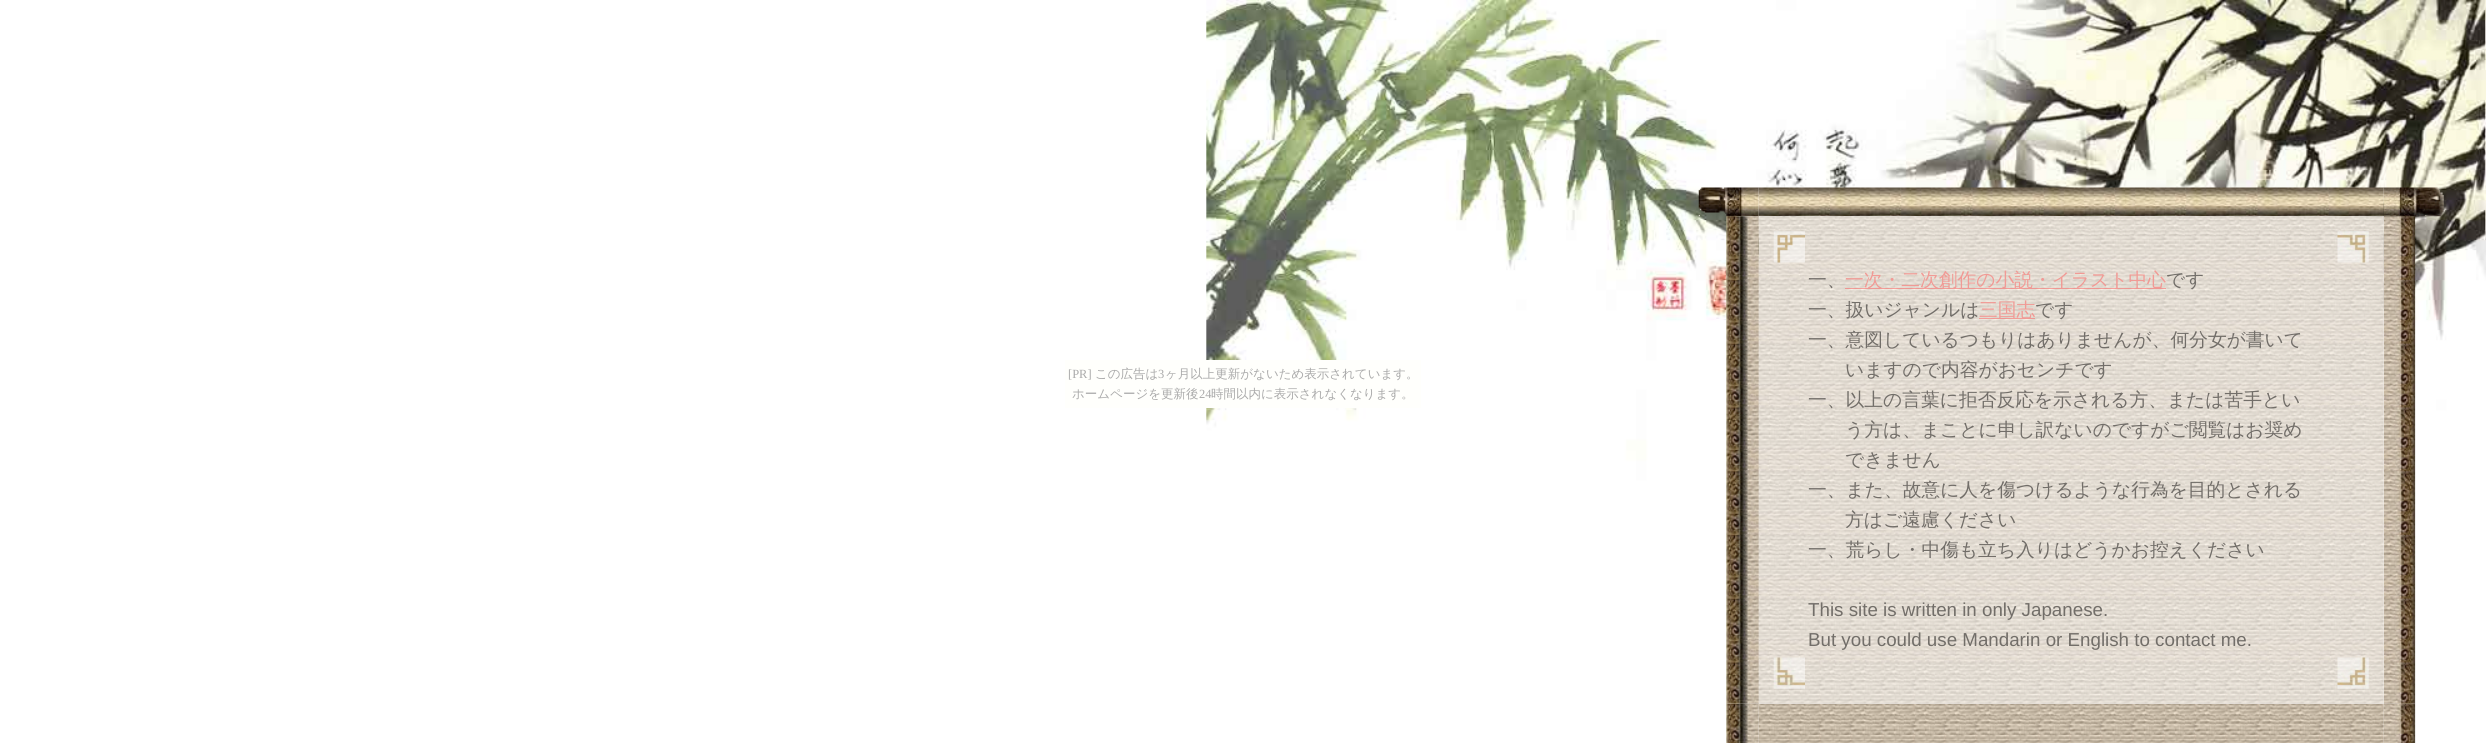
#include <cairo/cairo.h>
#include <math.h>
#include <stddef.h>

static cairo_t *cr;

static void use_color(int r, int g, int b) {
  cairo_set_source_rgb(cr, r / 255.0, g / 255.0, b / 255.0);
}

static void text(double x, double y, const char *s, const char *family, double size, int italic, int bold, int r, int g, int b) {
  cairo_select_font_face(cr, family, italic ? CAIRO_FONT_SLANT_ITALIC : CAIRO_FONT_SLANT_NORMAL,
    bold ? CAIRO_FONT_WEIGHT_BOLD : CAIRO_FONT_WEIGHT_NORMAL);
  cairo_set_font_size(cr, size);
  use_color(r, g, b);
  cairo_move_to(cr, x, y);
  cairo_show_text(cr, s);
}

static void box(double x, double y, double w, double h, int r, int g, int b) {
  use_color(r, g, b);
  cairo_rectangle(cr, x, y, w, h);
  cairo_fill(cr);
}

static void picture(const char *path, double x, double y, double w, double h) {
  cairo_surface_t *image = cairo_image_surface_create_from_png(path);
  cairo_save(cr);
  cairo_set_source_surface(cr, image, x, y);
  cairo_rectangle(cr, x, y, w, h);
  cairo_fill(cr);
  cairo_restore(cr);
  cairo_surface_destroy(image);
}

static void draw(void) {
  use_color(255, 255, 255);
  cairo_paint(cr);
  picture("img_01.png", 1206, 0, 1280, 710);
  box(1065, 360, 356, 48, 255, 255, 252);
  picture("img_02.png", 1698, 187, 61, 30);
  picture("img_03.png", 1758, 187, 626, 30);
  picture("img_04.png", 2383, 187, 61, 30);
  picture("img_05.png", 1726, 216, 33, 488);
  picture("img_06.png", 1758, 216, 626, 488);
  picture("img_11.png", 2383, 216, 33, 488);
  picture("img_12.png", 1726, 703, 33, 40);
  picture("img_13.png", 1758, 703, 626, 40);
  picture("img_14.png", 2383, 703, 33, 40);
  cairo_set_source_rgba(cr, 1, 1, 1, 0.5);
  cairo_rectangle(cr, 1759, 216, 625, 488);
  cairo_fill(cr);
  picture("img_07.png", 1773, 231, 32, 32);
  picture("img_08.png", 2337, 231, 32, 32);
  cairo_set_source_rgba(cr, 1, 0.357, 0.357, 0.5);
  cairo_rectangle(cr, 1845, 288, 321, 1);
  cairo_fill(cr);
  cairo_rectangle(cr, 1979, 318, 56, 1);
  cairo_fill(cr);
  picture("img_09.png", 1773, 657, 32, 32);
  picture("img_10.png", 2337, 657, 32, 32);
  text(1068, 378, "[PR]", "Liberation Serif", 12.5, 0, 0, 170, 170, 170);
  text(1095, 378, "この広告は", "WenQuanYi Zen Hei Medium", 12.5, 0, 0, 170, 170, 170);
  text(1158, 378, "3", "Liberation Serif", 12.5, 0, 0, 170, 170, 170);
  text(1165, 378, "ヶ月以上更新がないため表示されています。", "WenQuanYi Zen Hei Medium", 12.5, 0, 0, 170, 170, 170);
  text(1072, 398, "ホームページを更新後", "WenQuanYi Zen Hei Medium", 12.5, 0, 0, 170, 170, 170);
  text(1199, 398, "24", "Liberation Serif", 12.5, 0, 0, 170, 170, 170);
  text(1211, 398, "時間以内に表示されなくなります。", "WenQuanYi Zen Hei Medium", 12.5, 0, 0, 170, 170, 170);
  text(1808, 286, "一、", "WenQuanYi Zen Hei Medium", 18.75, 0, 0, 114, 110, 105);
  text(1845, 286, "一次・二次創作の小説・イラスト中心", "WenQuanYi Zen Hei Medium", 18.75, 0, 0, 241, 154, 149);
  text(2166, 286, "です", "WenQuanYi Zen Hei Medium", 18.75, 0, 0, 114, 110, 105);
  text(1808, 316, "一、扱いジャンルは", "WenQuanYi Zen Hei Medium", 18.75, 0, 0, 114, 110, 105);
  text(1979, 316, "三国志", "WenQuanYi Zen Hei Medium", 18.75, 0, 0, 241, 154, 149);
  text(2035, 316, "です", "WenQuanYi Zen Hei Medium", 18.75, 0, 0, 114, 110, 105);
  text(1808, 346, "一、意図しているつもりはありませんが、何分女が書いて", "WenQuanYi Zen Hei Medium", 18.75, 0, 0, 114, 110, 105);
  text(1845, 376, "いますので内容がおセンチです", "WenQuanYi Zen Hei Medium", 18.75, 0, 0, 114, 110, 105);
  text(1808, 406, "一、以上の言葉に拒否反応を示される方、または苦手とい", "WenQuanYi Zen Hei Medium", 18.75, 0, 0, 114, 110, 105);
  text(1845, 436, "う方は、まことに申し訳ないのですがご閲覧はお奨め", "WenQuanYi Zen Hei Medium", 18.75, 0, 0, 114, 110, 105);
  text(1845, 466, "できません", "WenQuanYi Zen Hei Medium", 18.75, 0, 0, 114, 110, 105);
  text(1808, 496, "一、また、故意に人を傷つけるような行為を目的とされる", "WenQuanYi Zen Hei Medium", 18.75, 0, 0, 114, 110, 105);
  text(1845, 526, "方はご遠慮ください", "WenQuanYi Zen Hei Medium", 18.75, 0, 0, 114, 110, 105);
  text(1808, 556, "一、荒らし・中傷も立ち入りはどうかお控えください", "WenQuanYi Zen Hei Medium", 18.75, 0, 0, 114, 110, 105);
  text(1808, 616, "This site is written in only Japanese.", "Liberation Sans", 18.75, 0, 0, 114, 110, 105);
  text(1808, 646, "But you could use Mandarin or English to contact me.", "Liberation Sans", 18.75, 0, 0, 114, 110, 105);
}

int main(void) {
  cairo_surface_t *surface = cairo_image_surface_create(CAIRO_FORMAT_RGB24, 2486, 743);
  cr = cairo_create(surface);
  cairo_font_options_t *options = cairo_font_options_create();
  cairo_font_options_set_hint_metrics(options, CAIRO_HINT_METRICS_OFF);
  cairo_font_options_set_hint_style(options, CAIRO_HINT_STYLE_NONE);
  cairo_set_font_options(cr, options);
  cairo_set_miter_limit(cr, 4);
  draw();
  cairo_surface_write_to_png(surface, "out.png");
  cairo_font_options_destroy(options);
  cairo_destroy(cr);
  cairo_surface_destroy(surface);
  return 0;
}
